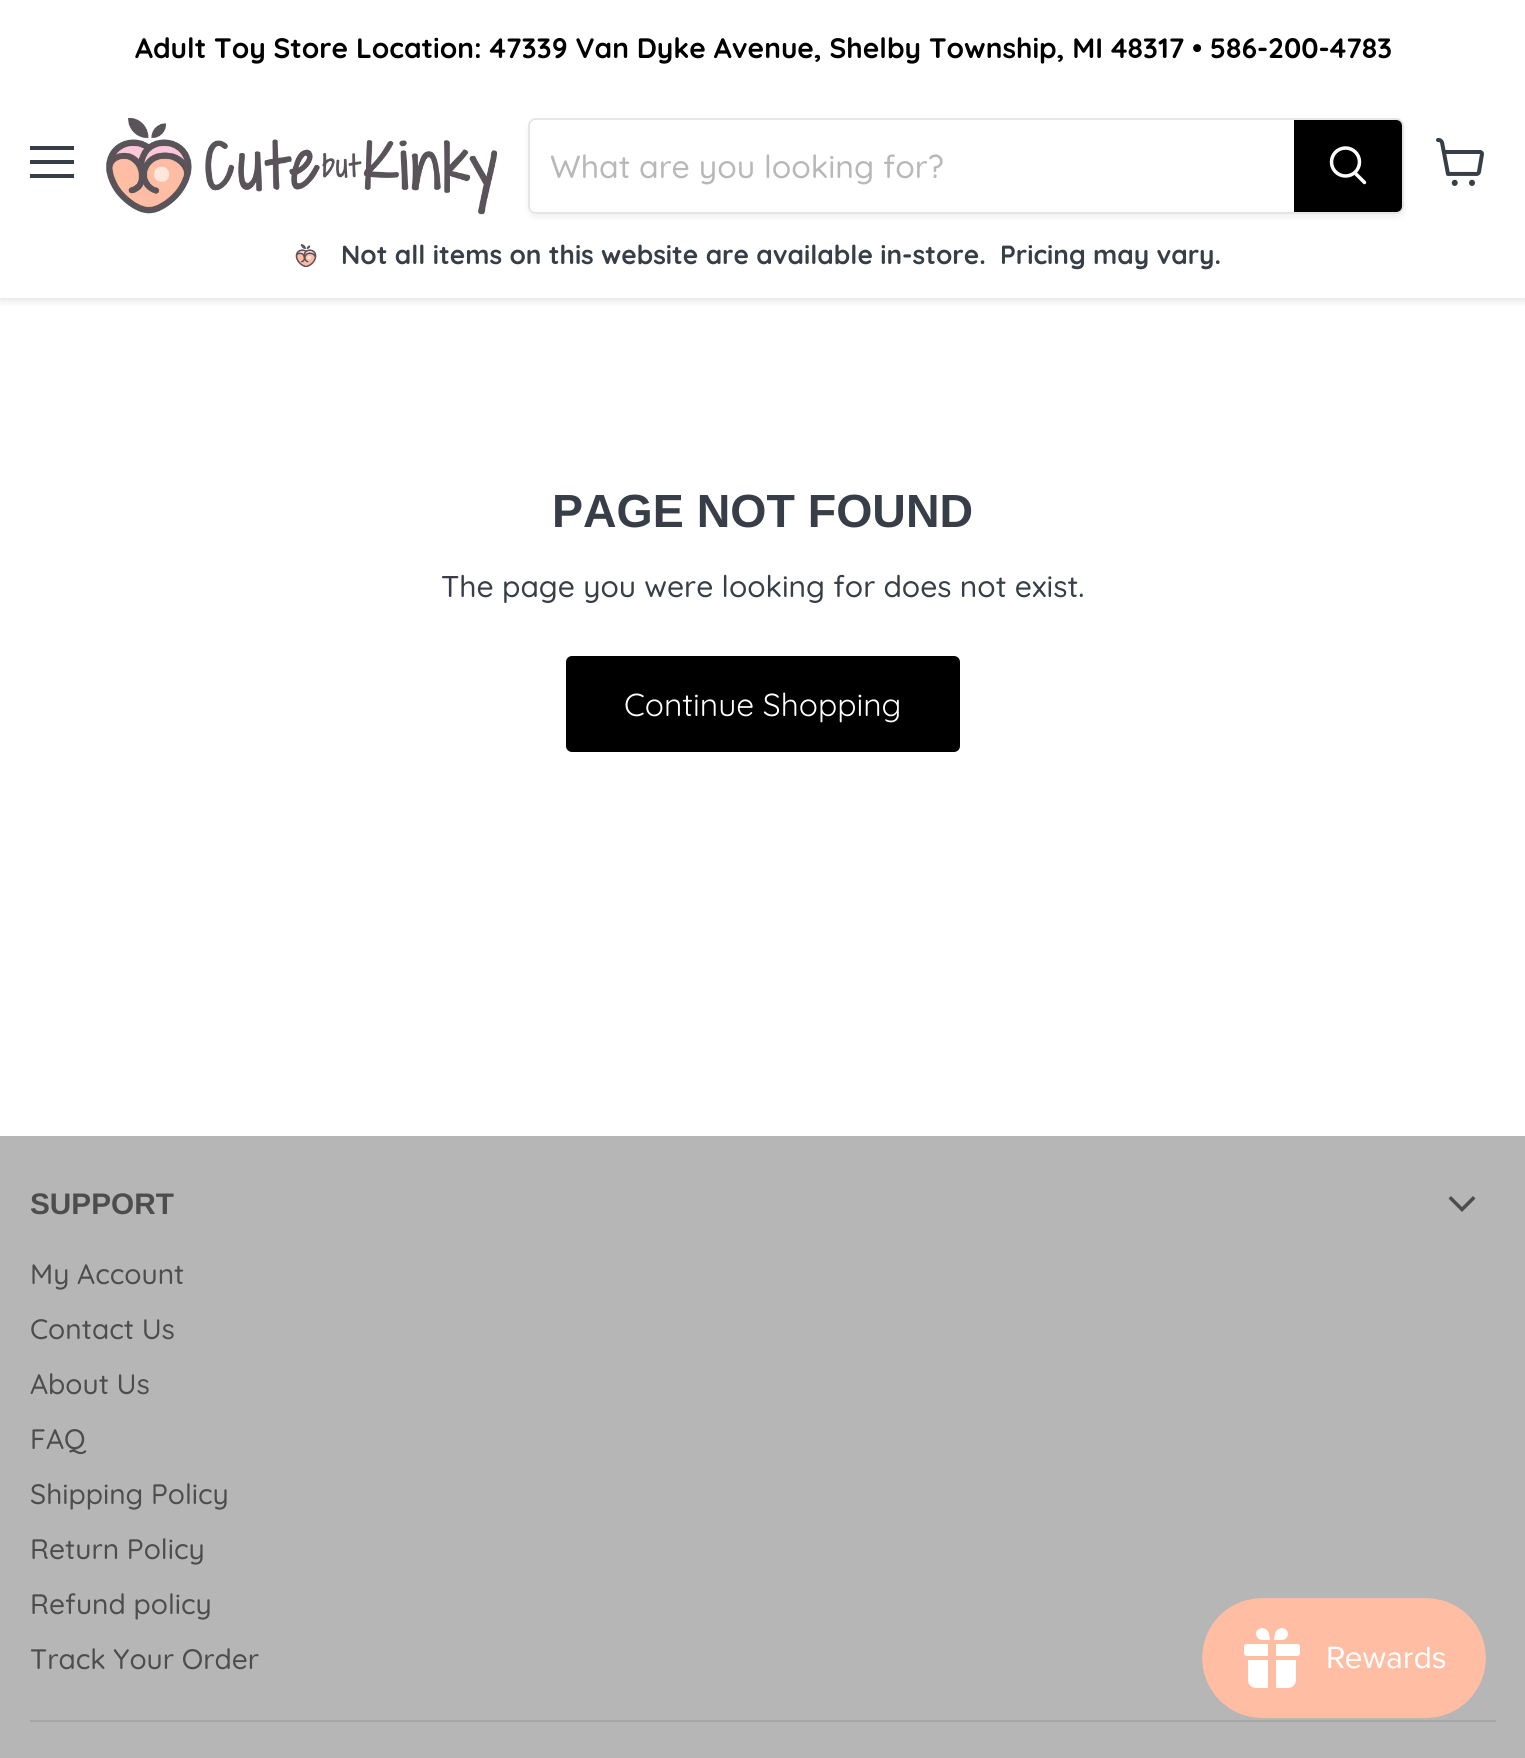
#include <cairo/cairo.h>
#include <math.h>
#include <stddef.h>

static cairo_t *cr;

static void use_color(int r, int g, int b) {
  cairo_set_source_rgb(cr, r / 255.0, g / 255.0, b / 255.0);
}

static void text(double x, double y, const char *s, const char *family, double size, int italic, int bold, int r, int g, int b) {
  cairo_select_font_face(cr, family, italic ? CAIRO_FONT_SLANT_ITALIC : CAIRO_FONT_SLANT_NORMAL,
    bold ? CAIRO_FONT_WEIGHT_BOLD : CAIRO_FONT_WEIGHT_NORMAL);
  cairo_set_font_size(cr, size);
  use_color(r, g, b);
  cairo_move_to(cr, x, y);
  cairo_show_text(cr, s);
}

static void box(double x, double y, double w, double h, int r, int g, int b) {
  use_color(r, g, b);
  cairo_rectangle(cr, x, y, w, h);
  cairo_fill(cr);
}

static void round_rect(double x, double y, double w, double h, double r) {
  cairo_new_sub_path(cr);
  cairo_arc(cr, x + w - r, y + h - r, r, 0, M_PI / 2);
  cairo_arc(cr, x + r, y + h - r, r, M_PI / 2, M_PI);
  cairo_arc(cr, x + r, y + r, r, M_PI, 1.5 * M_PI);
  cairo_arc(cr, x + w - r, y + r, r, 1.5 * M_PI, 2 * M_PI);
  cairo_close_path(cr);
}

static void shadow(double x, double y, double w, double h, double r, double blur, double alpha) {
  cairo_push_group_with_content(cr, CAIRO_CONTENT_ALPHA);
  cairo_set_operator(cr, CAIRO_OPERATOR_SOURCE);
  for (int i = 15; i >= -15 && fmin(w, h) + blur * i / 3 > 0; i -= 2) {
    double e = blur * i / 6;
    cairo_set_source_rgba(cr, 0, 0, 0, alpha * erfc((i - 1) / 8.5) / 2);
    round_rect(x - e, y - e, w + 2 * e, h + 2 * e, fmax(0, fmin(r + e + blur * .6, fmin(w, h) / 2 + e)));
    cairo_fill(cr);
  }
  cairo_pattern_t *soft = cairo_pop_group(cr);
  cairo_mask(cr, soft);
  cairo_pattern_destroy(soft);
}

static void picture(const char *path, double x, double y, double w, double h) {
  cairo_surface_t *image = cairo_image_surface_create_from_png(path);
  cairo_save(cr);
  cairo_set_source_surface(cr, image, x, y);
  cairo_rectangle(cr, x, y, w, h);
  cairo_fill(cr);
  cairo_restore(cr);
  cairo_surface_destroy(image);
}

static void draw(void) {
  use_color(255, 255, 255);
  cairo_paint(cr);
  cairo_save(cr);
  cairo_rectangle(cr, 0, 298, 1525, 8);
  cairo_clip(cr);
  use_color(128, 128, 128);
  shadow(0, 98, 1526, 202, 0, 4, 0.25);
  cairo_restore(cr);
  box(0, 92, 1525, 4, 255, 255, 255);
  box(30, 146, 44, 4, 56, 62, 71);
  box(30, 160, 44, 4, 56, 62, 71);
  box(30, 174, 44, 4, 56, 62, 71);
  picture("img_01.png", 106, 117, 392, 98);
  cairo_save(cr);
  cairo_set_fill_rule(cr, CAIRO_FILL_RULE_EVEN_ODD);
  cairo_new_path(cr);
  cairo_move_to(cr, 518, 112);
  cairo_line_to(cr, 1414, 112);
  cairo_line_to(cr, 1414, 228);
  cairo_line_to(cr, 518, 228);
  cairo_close_path(cr);
  cairo_move_to(cr, 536, 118);
  cairo_line_to(cr, 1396, 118);
  cairo_curve_to(cr, 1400.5, 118, 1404, 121.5, 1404, 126);
  cairo_line_to(cr, 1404, 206);
  cairo_curve_to(cr, 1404, 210.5, 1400.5, 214, 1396, 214);
  cairo_line_to(cr, 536, 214);
  cairo_curve_to(cr, 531.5, 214, 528, 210.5, 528, 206);
  cairo_line_to(cr, 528, 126);
  cairo_curve_to(cr, 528, 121.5, 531.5, 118, 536, 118);
  cairo_close_path(cr);
  cairo_clip(cr);
  use_color(128, 128, 128);
  shadow(528, 122, 876, 96, 8, 3, 0.11);
  cairo_restore(cr);
  round_rect(529, 119, 874, 94, 7);
  cairo_set_source_rgba(cr, 0.502, 0.502, 0.502, 0.2);
  cairo_stroke(cr);
  use_color(255, 255, 255);
  cairo_new_path(cr);
  cairo_move_to(cr, 536, 120);
  cairo_line_to(cr, 1294, 120);
  cairo_line_to(cr, 1294, 212);
  cairo_line_to(cr, 536, 212);
  cairo_curve_to(cr, 532.5, 212, 530, 209.5, 530, 206);
  cairo_line_to(cr, 530, 126);
  cairo_curve_to(cr, 530, 122.5, 532.5, 120, 536, 120);
  cairo_close_path(cr);
  cairo_fill(cr);
  use_color(0, 0, 0);
  cairo_new_path(cr);
  cairo_move_to(cr, 1295, 121);
  cairo_line_to(cr, 1396, 121);
  cairo_curve_to(cr, 1399, 121, 1401, 123, 1401, 126);
  cairo_line_to(cr, 1401, 206);
  cairo_curve_to(cr, 1401, 209, 1399, 211, 1396, 211);
  cairo_line_to(cr, 1295, 211);
  cairo_close_path(cr);
  cairo_fill_preserve(cr);
  cairo_stroke(cr);
  cairo_new_path(cr);
  cairo_move_to(cr, 1364.5, 182.5);
  cairo_line_to(cr, 1355, 173);
  use_color(255, 255, 255);
  cairo_set_line_width(cr, 3.5);
  cairo_set_line_cap(cr, CAIRO_LINE_CAP_ROUND);
  cairo_stroke(cr);
  cairo_arc(cr, 1345.5, 162, 14, 0, 2 * M_PI);
  cairo_set_line_cap(cr, CAIRO_LINE_CAP_BUTT);
  cairo_stroke(cr);
  picture("img_02.png", 294, 244, 23, 23);
  picture("img_03.png", 1436, 138, 48, 48);
  use_color(0, 0, 0);
  round_rect(567, 657, 392, 94, 5);
  cairo_fill_preserve(cr);
  cairo_set_line_width(cr, 2);
  cairo_stroke(cr);
  box(0, 1136, 1525, 622, 182, 182, 182);
  box(30, 1720, 1466, 2, 166, 166, 166);
  cairo_new_path(cr);
  cairo_move_to(cr, 1462, 1209.5);
  cairo_line_to(cr, 1473, 1198.5);
  cairo_move_to(cr, 1462, 1209.5);
  cairo_line_to(cr, 1451, 1198.5);
  use_color(77, 77, 77);
  cairo_set_line_width(cr, 3.5);
  cairo_set_line_cap(cr, CAIRO_LINE_CAP_SQUARE);
  cairo_stroke(cr);
  picture("img_04.png", 1202, 1598, 284, 120);
  text(135, 58, "Adult Toy Store Location: 47339 Van Dyke Avenue, Shelby Township, MI 48317 • 586-200-4783", "Quicksand", 28.1, 0, 1, 0, 0, 0);
  text(550, 178, "What are you looking for?", "Quicksand Medium", 32, 0, 0, 184, 184, 184);
  text(341, 264, "Not all items on this website are available in-store.", "Quicksand", 26.25, 0, 1, 56, 62, 71);
  text(1000, 264, "Pricing may vary.", "Quicksand", 26.25, 0, 1, 56, 62, 71);
  text(552, 527, "PAGE NOT FOUND", "Liberation Sans", 46.5, 0, 1, 56, 62, 71);
  text(441, 597, "The page you were looking for does not exist.", "Quicksand Medium", 30, 0, 0, 56, 62, 71);
  text(624, 716, "Continue Shopping", "Quicksand", 31.75, 0, 0, 255, 255, 255);
  text(30, 1214, "SUPPORT", "Liberation Sans", 29.75, 0, 1, 77, 77, 77);
  text(30, 1284, "My Account", "Quicksand Medium", 28.1, 0, 0, 77, 77, 77);
  text(30, 1339, "Contact Us", "Quicksand Medium", 28.1, 0, 0, 77, 77, 77);
  text(30, 1394, "About Us", "Quicksand Medium", 28.1, 0, 0, 77, 77, 77);
  text(30, 1449, "FAQ", "Quicksand Medium", 28.1, 0, 0, 77, 77, 77);
  text(30, 1504, "Shipping Policy", "Quicksand Medium", 28.1, 0, 0, 77, 77, 77);
  text(30, 1559, "Return Policy", "Quicksand Medium", 28.1, 0, 0, 77, 77, 77);
  text(30, 1614, "Refund policy", "Quicksand Medium", 28.1, 0, 0, 77, 77, 77);
  text(30, 1669, "Track Your Order", "Quicksand Medium", 28.1, 0, 0, 77, 77, 77);
}

int main(void) {
  cairo_surface_t *surface = cairo_image_surface_create(CAIRO_FORMAT_RGB24, 1525, 1758);
  cr = cairo_create(surface);
  cairo_font_options_t *options = cairo_font_options_create();
  cairo_font_options_set_hint_metrics(options, CAIRO_HINT_METRICS_OFF);
  cairo_font_options_set_hint_style(options, CAIRO_HINT_STYLE_NONE);
  cairo_set_font_options(cr, options);
  cairo_set_miter_limit(cr, 4);
  draw();
  cairo_surface_write_to_png(surface, "out.png");
  cairo_font_options_destroy(options);
  cairo_destroy(cr);
  cairo_surface_destroy(surface);
  return 0;
}
